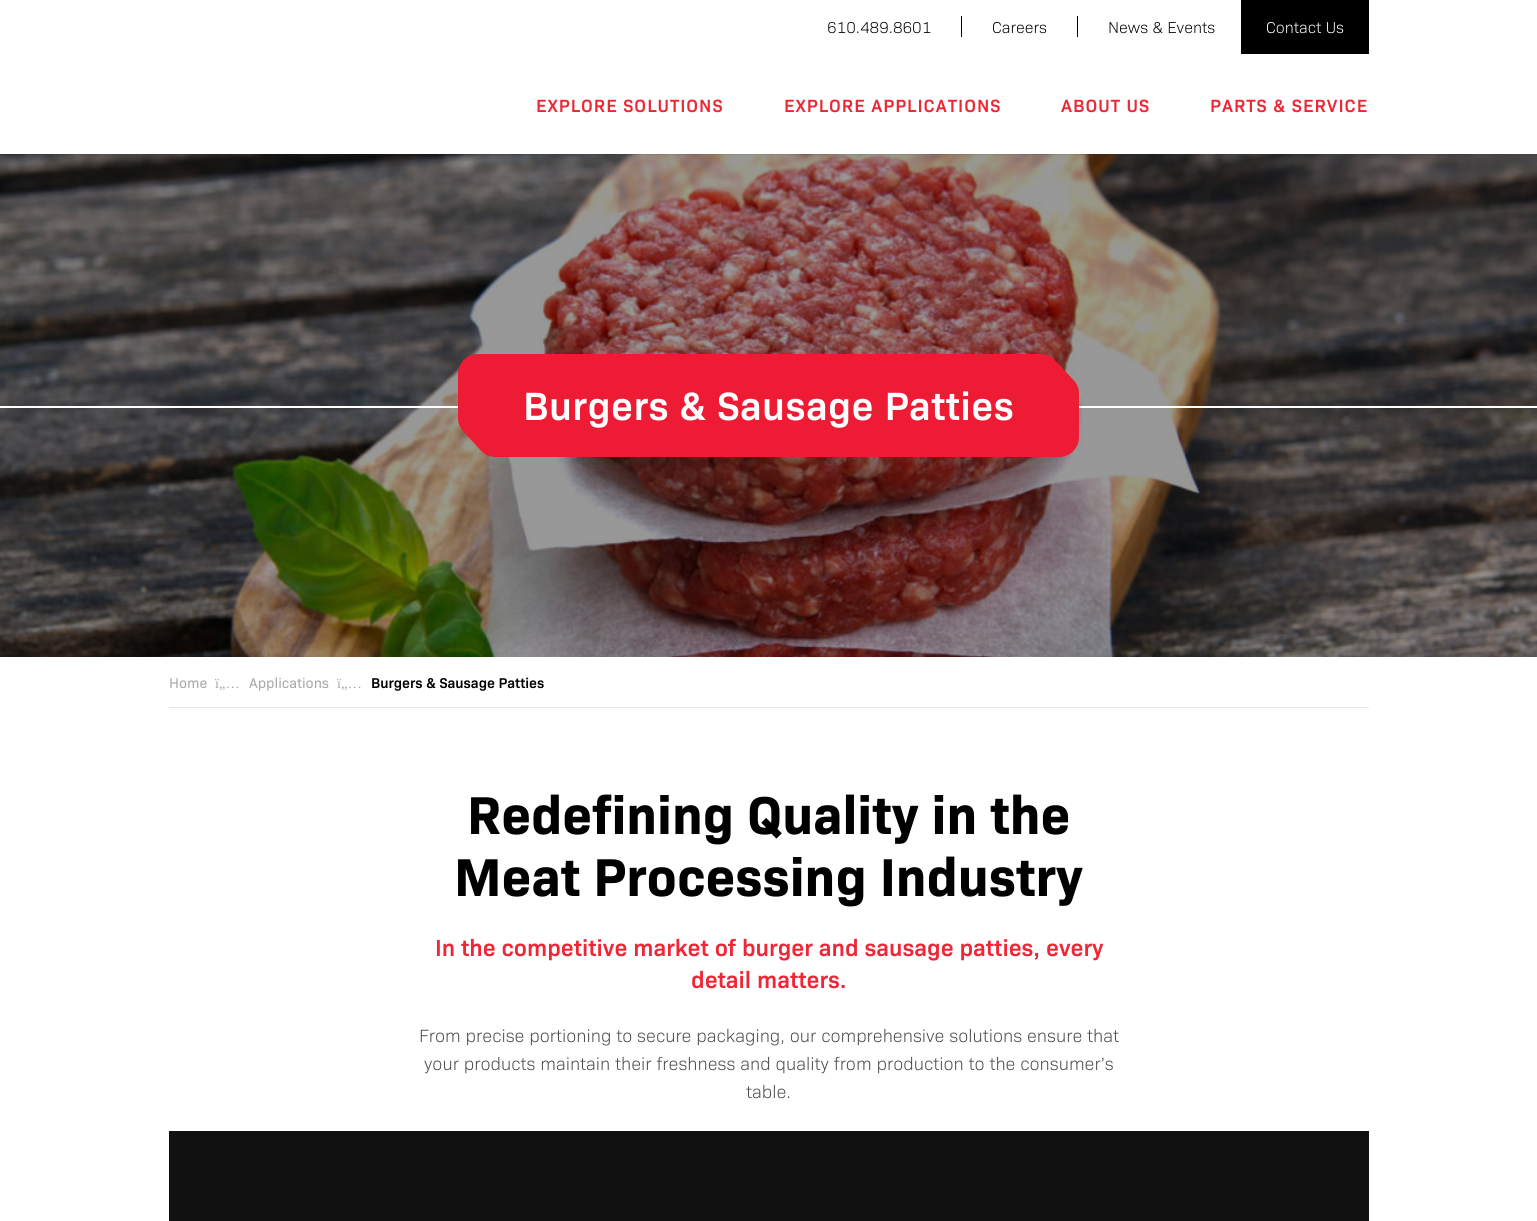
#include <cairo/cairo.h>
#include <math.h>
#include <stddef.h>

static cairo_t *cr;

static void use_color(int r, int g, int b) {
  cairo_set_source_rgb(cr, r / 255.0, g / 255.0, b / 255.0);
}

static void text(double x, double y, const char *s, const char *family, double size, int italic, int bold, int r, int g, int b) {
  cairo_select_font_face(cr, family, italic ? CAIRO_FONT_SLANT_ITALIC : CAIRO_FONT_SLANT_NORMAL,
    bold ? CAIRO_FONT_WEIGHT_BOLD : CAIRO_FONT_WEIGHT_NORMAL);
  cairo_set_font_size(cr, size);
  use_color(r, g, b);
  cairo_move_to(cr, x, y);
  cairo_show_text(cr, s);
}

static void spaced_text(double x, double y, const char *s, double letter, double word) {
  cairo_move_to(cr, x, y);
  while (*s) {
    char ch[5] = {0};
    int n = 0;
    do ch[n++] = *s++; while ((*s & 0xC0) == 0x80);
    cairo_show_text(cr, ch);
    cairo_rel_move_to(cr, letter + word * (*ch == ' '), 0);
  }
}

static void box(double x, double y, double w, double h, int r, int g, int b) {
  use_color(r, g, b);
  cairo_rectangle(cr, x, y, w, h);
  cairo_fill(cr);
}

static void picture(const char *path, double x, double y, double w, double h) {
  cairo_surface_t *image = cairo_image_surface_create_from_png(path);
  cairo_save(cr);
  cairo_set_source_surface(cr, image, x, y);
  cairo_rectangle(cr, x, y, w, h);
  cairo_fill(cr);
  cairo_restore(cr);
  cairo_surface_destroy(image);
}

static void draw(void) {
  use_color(255, 255, 255);
  cairo_paint(cr);
  box(961, 16, 1, 21, 0, 0, 0);
  box(1077, 16, 1, 21, 0, 0, 0);
  box(1241, 0, 128, 54, 0, 0, 0);
  picture("img_01.png", 0, 154, 1537, 503);
  cairo_set_source_rgba(cr, 0, 0, 0, 0.08);
  cairo_rectangle(cr, 0, 154, 1537, 1);
  cairo_fill(cr);
  box(0, 406, 1537, 2, 255, 255, 255);
  box(493, 354, 551, 103, 237, 27, 52);
  picture("img_02.png", 458, 354, 35, 103);
  picture("img_03.png", 1044, 354, 35, 103);
  box(169, 707, 1200, 1, 230, 230, 231);
  box(169, 1131, 1200, 90, 17, 17, 17);
  text(827, 33, "610.489.8601", "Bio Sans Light", 16, 0, 0, 0, 0, 0);
  text(992, 33, "Careers", "Bio Sans Light", 16, 0, 0, 0, 0, 0);
  text(1108, 33, "News & Events", "Bio Sans Light", 16, 0, 0, 0, 0, 0);
  text(1266, 33, "Contact Us", "Bio Sans Light", 16, 0, 0, 255, 255, 255);
  cairo_select_font_face(cr, "Bio Sans SemiBold", CAIRO_FONT_SLANT_NORMAL, CAIRO_FONT_WEIGHT_NORMAL);
  cairo_set_font_size(cr, 18);
  use_color(238, 39, 55);
  spaced_text(536, 112, "EXPLORE SOLUTIONS", 1, 0);
  spaced_text(784, 112, "EXPLORE APPLICATIONS", 1, 0);
  spaced_text(1061, 112, "ABOUT US", 1, 0);
  spaced_text(1210, 112, "PARTS & SERVICE", 1, 0);
  cairo_set_font_size(cr, 40);
  use_color(255, 255, 255);
  spaced_text(523, 420, "Burgers & Sausage Patties", 0.4, 0);
  text(169, 688, "Home", "Bio Sans", 14.4, 0, 0, 168, 169, 170);
  text(215, 688, "ï„…", "Liberation Serif", 14.4, 0, 0, 168, 169, 170);
  text(249, 688, "Applications", "Bio Sans", 14.4, 0, 0, 168, 169, 170);
  text(337, 688, "ï„…", "Liberation Serif", 14.4, 0, 0, 168, 169, 170);
  text(371, 688, "Burgers & Sausage Patties", "Bio Sans SemiBold", 14.4, 0, 0, 0, 0, 0);
  text(467, 834, "Redefining Quality in the", "Bio Sans", 54, 0, 1, 0, 0, 0);
  text(454, 896, "Meat Processing Industry", "Bio Sans", 54, 0, 1, 0, 0, 0);
  text(435, 956, "In the competitive market of burger and sausage patties, every", "Bio Sans SemiBold", 23.5, 0, 0, 238, 39, 55);
  text(691, 988, "detail matters.", "Bio Sans SemiBold", 23.5, 0, 0, 238, 39, 55);
  text(419, 1042, "From precise portioning to secure packaging, our comprehensive solutions ensure that", "Bio Sans Light", 18, 0, 0, 74, 74, 74);
  text(424, 1070, "your products maintain their freshness and quality from production to the consumer’s", "Bio Sans Light", 18, 0, 0, 74, 74, 74);
  text(746, 1098, "table.", "Bio Sans Light", 18, 0, 0, 74, 74, 74);
}

int main(void) {
  cairo_surface_t *surface = cairo_image_surface_create(CAIRO_FORMAT_RGB24, 1537, 1221);
  cr = cairo_create(surface);
  cairo_font_options_t *options = cairo_font_options_create();
  cairo_font_options_set_hint_metrics(options, CAIRO_HINT_METRICS_OFF);
  cairo_font_options_set_hint_style(options, CAIRO_HINT_STYLE_NONE);
  cairo_set_font_options(cr, options);
  cairo_set_miter_limit(cr, 4);
  draw();
  cairo_surface_write_to_png(surface, "out.png");
  cairo_font_options_destroy(options);
  cairo_destroy(cr);
  cairo_surface_destroy(surface);
  return 0;
}
